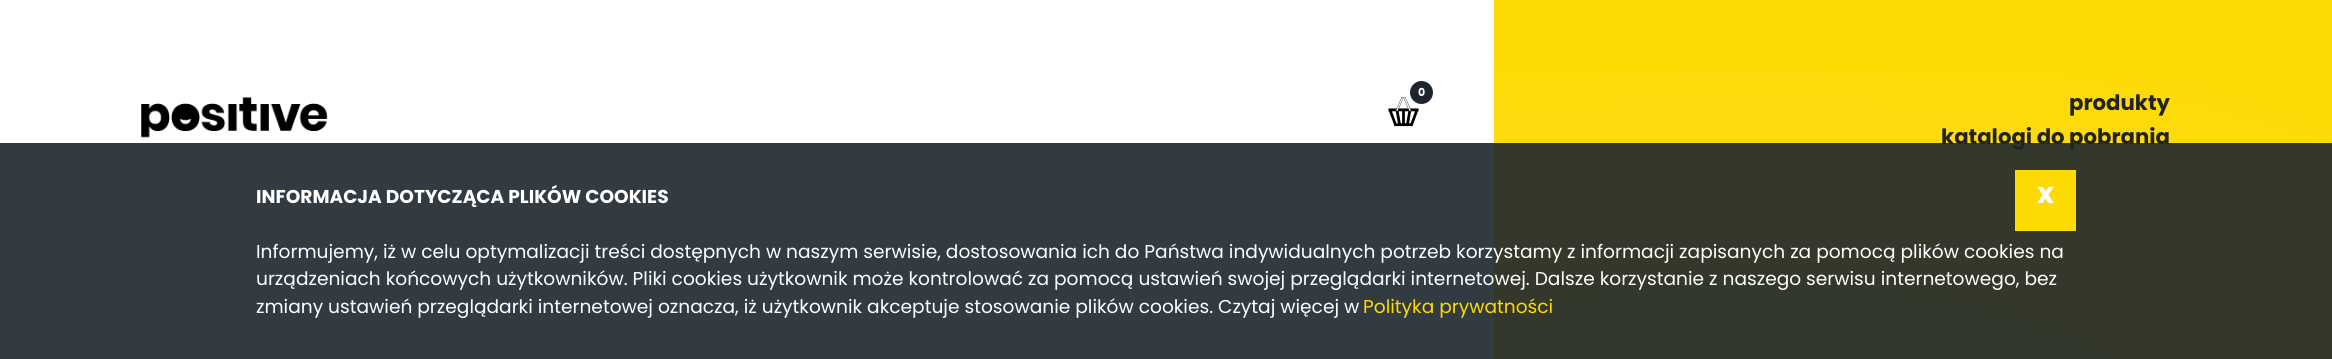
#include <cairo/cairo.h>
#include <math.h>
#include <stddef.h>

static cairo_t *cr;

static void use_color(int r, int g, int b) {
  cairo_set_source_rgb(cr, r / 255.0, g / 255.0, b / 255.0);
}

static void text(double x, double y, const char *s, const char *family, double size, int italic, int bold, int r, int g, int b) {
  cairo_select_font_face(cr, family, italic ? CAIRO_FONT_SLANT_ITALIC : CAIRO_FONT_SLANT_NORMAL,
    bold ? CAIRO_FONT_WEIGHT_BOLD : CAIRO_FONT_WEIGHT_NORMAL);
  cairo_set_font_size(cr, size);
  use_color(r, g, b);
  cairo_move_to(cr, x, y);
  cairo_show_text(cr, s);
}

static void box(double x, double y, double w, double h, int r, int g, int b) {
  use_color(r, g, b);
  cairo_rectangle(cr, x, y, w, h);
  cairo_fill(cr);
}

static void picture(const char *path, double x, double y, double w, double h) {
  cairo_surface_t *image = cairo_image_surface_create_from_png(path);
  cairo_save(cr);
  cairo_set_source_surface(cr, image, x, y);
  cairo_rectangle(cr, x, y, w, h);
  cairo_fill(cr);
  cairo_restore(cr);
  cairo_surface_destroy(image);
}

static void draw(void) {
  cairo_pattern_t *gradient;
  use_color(255, 255, 255);
  cairo_paint(cr);
  box(1494, 0, 838, 359, 253, 218, 4);
  gradient = cairo_pattern_create_radial(0, 0, 0, 0, 0, 1);
  cairo_pattern_set_matrix(gradient, &(cairo_matrix_t){1.0 / 1050, 0, 0, 1.0 / 531, -1.0 * 1749 / 1050, -1.0 * 531 / 531});
  cairo_pattern_add_color_stop_rgba(gradient, 0, 1, 1, 1, 0.16);
  cairo_pattern_add_color_stop_rgba(gradient, 1, 1, 1, 1, 0);
  cairo_set_source(cr, gradient);
  cairo_pattern_destroy(gradient);
  cairo_rectangle(cr, 1494, 71, 838, 288);
  cairo_fill(cr);
  picture("img_01.png", 1388, 96, 31, 31);
  use_color(29, 38, 46);
  cairo_arc(cr, 1421.5, 92.5, 11.5, 0, 2 * M_PI);
  cairo_fill(cr);
  picture("img_02.png", 141, 97, 187, 41);
  text(1418, 96, "0", "Poppins", 11, 0, 1, 255, 255, 255);
  text(2069, 110, "produkty", "Poppins", 21.25, 0, 1, 35, 35, 35);
  text(1941, 144, "katalogi do pobrania", "Poppins", 21.25, 0, 1, 35, 35, 35);
  cairo_set_source_rgba(cr, 0.114, 0.149, 0.18, 0.9);
  cairo_rectangle(cr, 0, 143, 2332, 216);
  cairo_fill(cr);
  text(256, 203, "INFORMACJA DOTYCZĄCA PLIKÓW COOKIES", "Poppins", 18.6, 0, 1, 255, 255, 255);
  box(2015, 170, 61, 61, 253, 218, 4);
  text(2037, 203, "x", "Poppins", 29, 0, 1, 255, 255, 255);
  text(256, 258, "Informujemy, iż w celu optymalizacji treści dostępnych w naszym serwisie, dostosowania ich do Państwa indywidualnych potrzeb korzystamy z informacji zapisanych za pomocą plików cookies na", "Poppins", 18.6, 0, 0, 255, 255, 255);
  text(256, 285, "urządzeniach końcowych użytkowników. Pliki cookies użytkownik może kontrolować za pomocą ustawień swojej przeglądarki internetowej. Dalsze korzystanie z naszego serwisu internetowego, bez", "Poppins", 18.6, 0, 0, 255, 255, 255);
  text(256, 313, "zmiany ustawień przeglądarki internetowej oznacza, iż użytkownik akceptuje stosowanie plików cookies. Czytaj więcej w", "Poppins", 18.6, 0, 0, 255, 255, 255);
  text(1363, 313, "Polityka prywatności", "Poppins", 18.6, 0, 0, 253, 218, 4);
}

int main(void) {
  cairo_surface_t *surface = cairo_image_surface_create(CAIRO_FORMAT_RGB24, 2332, 359);
  cr = cairo_create(surface);
  cairo_font_options_t *options = cairo_font_options_create();
  cairo_font_options_set_hint_metrics(options, CAIRO_HINT_METRICS_OFF);
  cairo_font_options_set_hint_style(options, CAIRO_HINT_STYLE_NONE);
  cairo_set_font_options(cr, options);
  cairo_set_miter_limit(cr, 4);
  draw();
  cairo_surface_write_to_png(surface, "out.png");
  cairo_font_options_destroy(options);
  cairo_destroy(cr);
  cairo_surface_destroy(surface);
  return 0;
}
